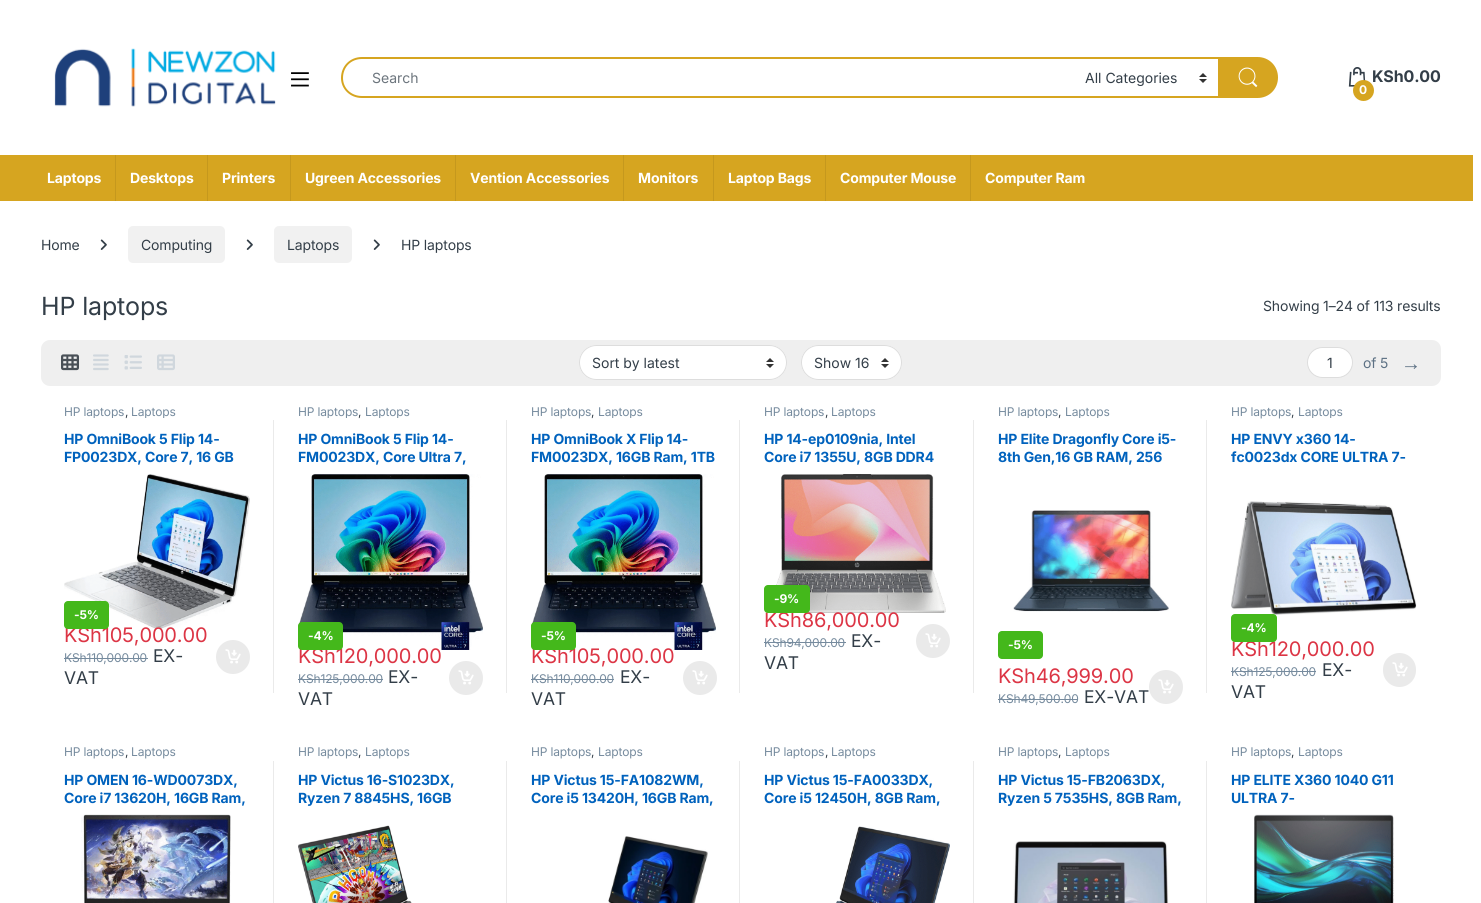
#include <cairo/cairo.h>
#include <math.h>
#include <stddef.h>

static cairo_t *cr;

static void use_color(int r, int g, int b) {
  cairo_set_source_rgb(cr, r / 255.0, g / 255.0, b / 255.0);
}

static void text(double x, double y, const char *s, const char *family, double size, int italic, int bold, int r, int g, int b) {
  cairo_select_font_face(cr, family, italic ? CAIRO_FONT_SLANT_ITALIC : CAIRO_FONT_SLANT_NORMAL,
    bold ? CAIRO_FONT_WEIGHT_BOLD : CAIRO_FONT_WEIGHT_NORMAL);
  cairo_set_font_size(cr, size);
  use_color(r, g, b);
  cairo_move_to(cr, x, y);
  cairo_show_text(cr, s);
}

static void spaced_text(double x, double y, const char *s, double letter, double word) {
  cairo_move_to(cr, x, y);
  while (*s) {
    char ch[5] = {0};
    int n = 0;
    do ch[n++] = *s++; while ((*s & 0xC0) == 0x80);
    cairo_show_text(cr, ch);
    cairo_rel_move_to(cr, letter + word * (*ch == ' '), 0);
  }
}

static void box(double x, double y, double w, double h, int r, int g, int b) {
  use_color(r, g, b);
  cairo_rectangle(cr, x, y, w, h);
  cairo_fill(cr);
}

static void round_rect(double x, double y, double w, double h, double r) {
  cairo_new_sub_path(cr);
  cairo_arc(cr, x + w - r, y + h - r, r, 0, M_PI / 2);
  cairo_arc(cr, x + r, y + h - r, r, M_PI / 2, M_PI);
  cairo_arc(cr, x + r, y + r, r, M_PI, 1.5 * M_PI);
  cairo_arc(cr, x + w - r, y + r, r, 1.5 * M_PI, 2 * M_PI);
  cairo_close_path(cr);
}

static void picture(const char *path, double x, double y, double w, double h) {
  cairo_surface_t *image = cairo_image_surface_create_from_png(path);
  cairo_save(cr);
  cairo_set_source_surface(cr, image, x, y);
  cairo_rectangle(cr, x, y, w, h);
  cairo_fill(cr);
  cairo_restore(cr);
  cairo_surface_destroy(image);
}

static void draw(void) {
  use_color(255, 255, 255);
  cairo_paint(cr);
  picture("img_01.png", 54, 48, 222, 59);
  picture("img_02.png", 291, 72, 18, 15);
  use_color(214, 165, 32);
  cairo_set_fill_rule(cr, CAIRO_FILL_RULE_EVEN_ODD);
  cairo_new_path(cr);
  cairo_move_to(cr, 362, 57);
  cairo_line_to(cr, 1074, 57);
  cairo_line_to(cr, 1074, 98);
  cairo_line_to(cr, 362, 98);
  cairo_curve_to(cr, 350, 98, 341, 89, 341, 78);
  cairo_curve_to(cr, 341, 66, 350, 57, 362, 57);
  cairo_close_path(cr);
  cairo_move_to(cr, 362, 59);
  cairo_line_to(cr, 1074, 59);
  cairo_line_to(cr, 1074, 96);
  cairo_line_to(cr, 362, 96);
  cairo_curve_to(cr, 351, 96, 343, 88, 343, 78);
  cairo_curve_to(cr, 343, 67, 351, 59, 362, 59);
  cairo_close_path(cr);
  cairo_fill(cr);
  box(1073, 57, 146, 2, 214, 165, 32);
  box(1073, 96, 146, 2, 214, 165, 32);
  picture("img_03.png", 1199, 73, 8, 10);
  cairo_new_path(cr);
  cairo_move_to(cr, 1219, 58);
  cairo_line_to(cr, 1257.5, 58);
  cairo_curve_to(cr, 1268.5, 58, 1277, 66.5, 1277, 77.5);
  cairo_curve_to(cr, 1277, 88.5, 1268.5, 97, 1257.5, 97);
  cairo_line_to(cr, 1219, 97);
  cairo_close_path(cr);
  cairo_fill_preserve(cr);
  cairo_stroke(cr);
  picture("img_04.png", 1238, 67, 20, 21);
  picture("img_05.png", 1348, 67, 18, 20);
  box(0, 155, 1473, 46, 214, 165, 32);
  box(115, 155, 1, 46, 197, 152, 29);
  box(207, 155, 1, 46, 197, 152, 29);
  box(290, 155, 1, 46, 197, 152, 29);
  box(455, 155, 1, 46, 197, 152, 29);
  box(623, 155, 1, 46, 197, 152, 29);
  box(713, 155, 1, 46, 197, 152, 29);
  box(825, 155, 1, 46, 197, 152, 29);
  box(970, 155, 1, 46, 197, 152, 29);
  picture("img_06.png", 100, 239, 7, 11);
  use_color(241, 241, 241);
  round_rect(128, 226, 97, 37, 5);
  cairo_fill(cr);
  picture("img_06.png", 246, 239, 7, 11);
  round_rect(274, 226, 78, 37, 5);
  cairo_fill(cr);
  picture("img_06.png", 373, 239, 7, 11);
  use_color(239, 239, 239);
  round_rect(41, 340, 1400, 46, 9);
  cairo_fill(cr);
  picture("img_07.png", 61, 354, 18, 17);
  picture("img_08.png", 93, 354, 16, 17);
  picture("img_09.png", 124, 355, 18, 15);
  picture("img_10.png", 157, 354, 18, 17);
  use_color(255, 255, 255);
  round_rect(579, 345, 208, 35, 17.5);
  cairo_fill(cr);
  picture("img_03.png", 766, 358, 8, 10);
  round_rect(579.5, 345.5, 207, 34, 17);
  use_color(221, 221, 221);
  cairo_set_line_width(cr, 1);
  cairo_stroke(cr);
  use_color(255, 255, 255);
  round_rect(801, 345, 101, 35, 17.5);
  cairo_fill(cr);
  picture("img_03.png", 881, 358, 8, 10);
  round_rect(801.5, 345.5, 100, 34, 17);
  use_color(221, 221, 221);
  cairo_stroke(cr);
  use_color(255, 255, 255);
  round_rect(1307.5, 347.5, 45, 30, 15);
  cairo_fill_preserve(cr);
  use_color(221, 221, 221);
  cairo_stroke(cr);
  picture("img_11.png", 64, 474, 186, 155);
  box(64, 658, 84, 1, 118, 139, 158);
  use_color(234, 234, 234);
  cairo_arc(cr, 233, 657, 17, 0, 2 * M_PI);
  cairo_fill(cr);
  picture("img_12.png", 225, 649, 16, 15);
  box(273, 420, 1, 273, 234, 234, 234);
  picture("img_13.png", 298, 474, 185, 176);
  box(298, 679, 85, 1, 118, 139, 158);
  use_color(234, 234, 234);
  cairo_arc(cr, 466, 678, 17, 0, 2 * M_PI);
  cairo_fill(cr);
  picture("img_12.png", 458, 670, 16, 15);
  box(506, 420, 1, 273, 234, 234, 234);
  picture("img_14.png", 531, 474, 185, 176);
  box(531, 679, 83, 1, 118, 139, 158);
  use_color(234, 234, 234);
  cairo_arc(cr, 700, 678, 17, 0, 2 * M_PI);
  cairo_fill(cr);
  picture("img_12.png", 692, 670, 16, 15);
  box(739, 420, 1, 273, 234, 234, 234);
  picture("img_15.png", 776, 474, 170, 139);
  box(764, 642, 82, 1, 118, 139, 158);
  use_color(234, 234, 234);
  cairo_arc(cr, 933, 641, 17, 0, 2 * M_PI);
  cairo_fill(cr);
  picture("img_12.png", 925, 633, 16, 15);
  box(973, 420, 1, 273, 234, 234, 234);
  picture("img_16.png", 1013, 510, 156, 102);
  use_color(68, 184, 27);
  round_rect(998, 631, 45, 28, 4);
  cairo_fill(cr);
  box(998, 699, 80, 1, 118, 139, 158);
  use_color(234, 234, 234);
  cairo_arc(cr, 1166, 687, 17, 0, 2 * M_PI);
  cairo_fill(cr);
  picture("img_12.png", 1158, 679, 16, 15);
  box(1206, 420, 1, 273, 234, 234, 234);
  picture("img_17.png", 1231, 501, 186, 114);
  box(1231, 671, 85, 1, 118, 139, 158);
  use_color(234, 234, 234);
  round_rect(1383, 653, 33, 34, 16.5);
  cairo_fill(cr);
  picture("img_12.png", 1392, 662, 16, 15);
  picture("img_18.png", 81, 814, 150, 89);
  box(273, 761, 1, 142, 234, 234, 234);
  picture("img_19.png", 298, 825, 114, 78);
  box(506, 761, 1, 142, 234, 234, 234);
  picture("img_20.png", 608, 836, 100, 67);
  box(739, 761, 1, 142, 234, 234, 234);
  picture("img_21.png", 836, 826, 114, 77);
  box(973, 761, 1, 142, 234, 234, 234);
  picture("img_22.png", 1013, 841, 157, 62);
  box(1206, 761, 1, 142, 234, 234, 234);
  picture("img_23.png", 1254, 814, 140, 89);
  text(372, 83, "Search", "Inter", 14, 0, 0, 108, 117, 125);
  text(1085, 83, "All Categories", "Inter", 14, 0, 0, 51, 62, 72);
  cairo_select_font_face(cr, "Inter", CAIRO_FONT_SLANT_NORMAL, CAIRO_FONT_WEIGHT_BOLD);
  cairo_set_font_size(cr, 16);
  spaced_text(1372, 82, "KSh0.00", -0.15, 0);
  use_color(214, 165, 32);
  cairo_new_path(cr);
  cairo_arc(cr, 1363.5, 90.5, 10.5, 0, 2 * M_PI);
  cairo_fill(cr);
  cairo_set_font_size(cr, 12);
  use_color(255, 255, 255);
  spaced_text(1359, 94, "0", -0.15, 0);
  cairo_set_font_size(cr, 14);
  spaced_text(47, 183, "Laptops", -0.15, 0);
  spaced_text(130, 183, "Desktops", -0.15, 0);
  spaced_text(222, 183, "Printers", -0.15, 0);
  spaced_text(305, 183, "Ugreen Accessories", -0.15, 0);
  spaced_text(470, 183, "Vention Accessories", -0.15, 0);
  spaced_text(638, 183, "Monitors", -0.15, 0);
  spaced_text(728, 183, "Laptop Bags", -0.15, 0);
  spaced_text(840, 183, "Computer Mouse", -0.15, 0);
  spaced_text(985, 183, "Computer Ram", -0.15, 0);
  cairo_select_font_face(cr, "Inter", CAIRO_FONT_SLANT_NORMAL, CAIRO_FONT_WEIGHT_NORMAL);
  use_color(51, 62, 72);
  spaced_text(41, 250, "Home", -0.15, 0);
  spaced_text(141, 250, "Computing", -0.15, 0);
  spaced_text(287, 250, "Laptops", -0.15, 0);
  spaced_text(401, 250, "HP laptops", -0.15, 0);
  cairo_set_font_size(cr, 25);
  spaced_text(41, 315, "HP laptops", -0.15, 0);
  cairo_set_font_size(cr, 14);
  spaced_text(1263, 311, "Showing 1–24 of 113 results", -0.15, 0);
  text(592, 368, "Sort by latest", "Inter", 14, 0, 0, 51, 62, 72);
  text(814, 368, "Show 16", "Inter", 14, 0, 0, 51, 62, 72);
  text(1327, 368, "1", "Inter", 14, 0, 0, 51, 62, 72);
  use_color(93, 113, 132);
  spaced_text(1363, 368, "of 5", -0.15, 0);
  cairo_select_font_face(cr, "Liberation Sans", CAIRO_FONT_SLANT_NORMAL, CAIRO_FONT_WEIGHT_NORMAL);
  cairo_set_font_size(cr, 20);
  spaced_text(1401, 370, "→", -0.15, 0);
  cairo_save(cr);
  cairo_set_fill_rule(cr, CAIRO_FILL_RULE_WINDING);
  cairo_rectangle(cr, 64, 406, 186, 12);
  cairo_clip(cr);
  cairo_select_font_face(cr, "Inter", CAIRO_FONT_SLANT_NORMAL, CAIRO_FONT_WEIGHT_NORMAL);
  cairo_set_font_size(cr, 12);
  use_color(118, 139, 158);
  spaced_text(64, 416, "HP laptops", -0.15, 0);
  cairo_restore(cr);
  cairo_select_font_face(cr, "Inter", CAIRO_FONT_SLANT_NORMAL, CAIRO_FONT_WEIGHT_NORMAL);
  cairo_set_font_size(cr, 12);
  use_color(51, 62, 72);
  spaced_text(125, 416, ",", -0.15, 0);
  cairo_save(cr);
  cairo_set_fill_rule(cr, CAIRO_FILL_RULE_WINDING);
  cairo_rectangle(cr, 64, 406, 186, 12);
  cairo_clip(cr);
  use_color(118, 139, 158);
  spaced_text(131, 416, "Laptops", -0.15, 0);
  cairo_restore(cr);
  cairo_select_font_face(cr, "Inter", CAIRO_FONT_SLANT_NORMAL, CAIRO_FONT_WEIGHT_BOLD);
  cairo_set_font_size(cr, 14);
  use_color(0, 98, 189);
  spaced_text(64, 444, "HP OmniBook 5 Flip 14-", -0.15, 0);
  spaced_text(64, 462, "FP0023DX, Core 7, 16 GB", -0.15, 0);
  cairo_select_font_face(cr, "Inter", CAIRO_FONT_SLANT_NORMAL, CAIRO_FONT_WEIGHT_NORMAL);
  cairo_set_font_size(cr, 20);
  use_color(220, 53, 69);
  spaced_text(64, 642, "KSh105,000.00", -0.15, 0);
  use_color(68, 184, 27);
  round_rect(64, 601, 45, 28, 4);
  cairo_fill(cr);
  cairo_select_font_face(cr, "Inter", CAIRO_FONT_SLANT_NORMAL, CAIRO_FONT_WEIGHT_BOLD);
  cairo_set_font_size(cr, 12);
  use_color(255, 255, 255);
  spaced_text(74, 619, "-5%", -0.15, 0);
  cairo_select_font_face(cr, "Inter", CAIRO_FONT_SLANT_NORMAL, CAIRO_FONT_WEIGHT_NORMAL);
  use_color(118, 139, 158);
  spaced_text(64, 662, "KSh110,000.00", -0.15, 0);
  cairo_set_font_size(cr, 17.5);
  use_color(51, 62, 72);
  spaced_text(153, 662, "EX-", -0.15, 0);
  spaced_text(64, 684, "VAT", -0.15, 0);
  cairo_save(cr);
  cairo_set_fill_rule(cr, CAIRO_FILL_RULE_WINDING);
  cairo_rectangle(cr, 298, 406, 185, 12);
  cairo_clip(cr);
  cairo_set_font_size(cr, 12);
  use_color(118, 139, 158);
  spaced_text(298, 416, "HP laptops", -0.15, 0);
  cairo_restore(cr);
  cairo_set_font_size(cr, 12);
  spaced_text(358, 416, ",", -0.15, 0);
  cairo_save(cr);
  cairo_set_fill_rule(cr, CAIRO_FILL_RULE_WINDING);
  cairo_rectangle(cr, 298, 406, 185, 12);
  cairo_clip(cr);
  use_color(118, 139, 158);
  spaced_text(365, 416, "Laptops", -0.15, 0);
  cairo_restore(cr);
  cairo_select_font_face(cr, "Inter", CAIRO_FONT_SLANT_NORMAL, CAIRO_FONT_WEIGHT_BOLD);
  cairo_set_font_size(cr, 14);
  use_color(0, 98, 189);
  spaced_text(298, 444, "HP OmniBook 5 Flip 14-", -0.15, 0);
  spaced_text(298, 462, "FM0023DX, Core Ultra 7,", -0.15, 0);
  cairo_select_font_face(cr, "Inter", CAIRO_FONT_SLANT_NORMAL, CAIRO_FONT_WEIGHT_NORMAL);
  cairo_set_font_size(cr, 20);
  use_color(220, 53, 69);
  spaced_text(298, 663, "KSh120,000.00", -0.15, 0);
  use_color(68, 184, 27);
  round_rect(298, 622, 45, 28, 4);
  cairo_fill(cr);
  cairo_select_font_face(cr, "Inter", CAIRO_FONT_SLANT_NORMAL, CAIRO_FONT_WEIGHT_BOLD);
  cairo_set_font_size(cr, 12);
  use_color(255, 255, 255);
  spaced_text(308, 640, "-4%", -0.15, 0);
  cairo_select_font_face(cr, "Inter", CAIRO_FONT_SLANT_NORMAL, CAIRO_FONT_WEIGHT_NORMAL);
  use_color(118, 139, 158);
  spaced_text(298, 683, "KSh125,000.00", -0.15, 0);
  cairo_set_font_size(cr, 17.5);
  use_color(51, 62, 72);
  spaced_text(388, 683, "EX-", -0.15, 0);
  spaced_text(298, 705, "VAT", -0.15, 0);
  cairo_set_font_size(cr, 12);
  use_color(118, 139, 158);
  spaced_text(531, 416, "HP laptops", -0.15, 0);
  use_color(51, 62, 72);
  spaced_text(591, 416, ",", -0.15, 0);
  cairo_save(cr);
  cairo_set_fill_rule(cr, CAIRO_FILL_RULE_WINDING);
  cairo_rectangle(cr, 531, 406, 186, 12);
  cairo_clip(cr);
  use_color(118, 139, 158);
  spaced_text(598, 416, "Laptops", -0.15, 0);
  cairo_restore(cr);
  cairo_select_font_face(cr, "Inter", CAIRO_FONT_SLANT_NORMAL, CAIRO_FONT_WEIGHT_BOLD);
  cairo_set_font_size(cr, 14);
  use_color(0, 98, 189);
  spaced_text(531, 444, "HP OmniBook X Flip 14-", -0.15, 0);
  spaced_text(531, 462, "FM0023DX, 16GB Ram, 1TB", -0.15, 0);
  cairo_select_font_face(cr, "Inter", CAIRO_FONT_SLANT_NORMAL, CAIRO_FONT_WEIGHT_NORMAL);
  cairo_set_font_size(cr, 20);
  use_color(220, 53, 69);
  spaced_text(531, 663, "KSh105,000.00", -0.15, 0);
  use_color(68, 184, 27);
  round_rect(531, 622, 45, 28, 4);
  cairo_fill(cr);
  cairo_select_font_face(cr, "Inter", CAIRO_FONT_SLANT_NORMAL, CAIRO_FONT_WEIGHT_BOLD);
  cairo_set_font_size(cr, 12);
  use_color(255, 255, 255);
  spaced_text(541, 640, "-5%", -0.15, 0);
  cairo_select_font_face(cr, "Inter", CAIRO_FONT_SLANT_NORMAL, CAIRO_FONT_WEIGHT_NORMAL);
  use_color(118, 139, 158);
  spaced_text(531, 683, "KSh110,000.00", -0.15, 0);
  cairo_set_font_size(cr, 17.5);
  use_color(51, 62, 72);
  spaced_text(620, 683, "EX-", -0.15, 0);
  spaced_text(531, 705, "VAT", -0.15, 0);
  cairo_save(cr);
  cairo_set_fill_rule(cr, CAIRO_FILL_RULE_WINDING);
  cairo_rectangle(cr, 764, 406, 186, 12);
  cairo_clip(cr);
  cairo_set_font_size(cr, 12);
  use_color(118, 139, 158);
  spaced_text(764, 416, "HP laptops", -0.15, 0);
  cairo_restore(cr);
  cairo_set_font_size(cr, 12);
  spaced_text(825, 416, ",", -0.15, 0);
  cairo_save(cr);
  cairo_set_fill_rule(cr, CAIRO_FILL_RULE_WINDING);
  cairo_rectangle(cr, 764, 406, 186, 12);
  cairo_clip(cr);
  use_color(118, 139, 158);
  spaced_text(831, 416, "Laptops", -0.15, 0);
  cairo_restore(cr);
  cairo_select_font_face(cr, "Inter", CAIRO_FONT_SLANT_NORMAL, CAIRO_FONT_WEIGHT_BOLD);
  cairo_set_font_size(cr, 14);
  use_color(0, 98, 189);
  spaced_text(764, 444, "HP 14-ep0109nia, Intel", -0.15, 0);
  spaced_text(764, 462, "Core i7 1355U, 8GB DDR4", -0.15, 0);
  cairo_select_font_face(cr, "Inter", CAIRO_FONT_SLANT_NORMAL, CAIRO_FONT_WEIGHT_NORMAL);
  cairo_set_font_size(cr, 20);
  use_color(220, 53, 69);
  spaced_text(764, 627, "KSh86,000.00", -0.15, 0);
  use_color(68, 184, 27);
  round_rect(764, 585, 46, 28, 4);
  cairo_fill(cr);
  cairo_select_font_face(cr, "Inter", CAIRO_FONT_SLANT_NORMAL, CAIRO_FONT_WEIGHT_BOLD);
  cairo_set_font_size(cr, 12);
  use_color(255, 255, 255);
  spaced_text(774, 603, "-9%", -0.15, 0);
  cairo_select_font_face(cr, "Inter", CAIRO_FONT_SLANT_NORMAL, CAIRO_FONT_WEIGHT_NORMAL);
  use_color(118, 139, 158);
  spaced_text(764, 647, "KSh94,000.00", -0.15, 0);
  cairo_set_font_size(cr, 17.5);
  use_color(51, 62, 72);
  spaced_text(851, 647, "EX-", -0.15, 0);
  spaced_text(764, 669, "VAT", -0.15, 0);
  cairo_save(cr);
  cairo_set_fill_rule(cr, CAIRO_FILL_RULE_WINDING);
  cairo_rectangle(cr, 998, 406, 185, 12);
  cairo_clip(cr);
  cairo_set_font_size(cr, 12);
  use_color(118, 139, 158);
  spaced_text(998, 416, "HP laptops", -0.15, 0);
  cairo_restore(cr);
  cairo_set_font_size(cr, 12);
  spaced_text(1058, 416, ",", -0.15, 0);
  cairo_save(cr);
  cairo_set_fill_rule(cr, CAIRO_FILL_RULE_WINDING);
  cairo_rectangle(cr, 998, 406, 185, 12);
  cairo_clip(cr);
  use_color(118, 139, 158);
  spaced_text(1065, 416, "Laptops", -0.15, 0);
  cairo_restore(cr);
  cairo_select_font_face(cr, "Inter", CAIRO_FONT_SLANT_NORMAL, CAIRO_FONT_WEIGHT_BOLD);
  cairo_set_font_size(cr, 14);
  use_color(0, 98, 189);
  spaced_text(998, 444, "HP Elite Dragonfly Core i5-", -0.15, 0);
  spaced_text(998, 462, "8th Gen,16 GB RAM, 256", -0.15, 0);
  cairo_set_font_size(cr, 12);
  use_color(255, 255, 255);
  spaced_text(1008, 649, "-5%", -0.15, 0);
  cairo_select_font_face(cr, "Inter", CAIRO_FONT_SLANT_NORMAL, CAIRO_FONT_WEIGHT_NORMAL);
  cairo_set_font_size(cr, 20);
  use_color(220, 53, 69);
  spaced_text(998, 683, "KSh46,999.00", -0.15, 0);
  cairo_set_font_size(cr, 12);
  use_color(118, 139, 158);
  spaced_text(998, 703, "KSh49,500.00", -0.15, 0);
  cairo_set_font_size(cr, 17.5);
  use_color(51, 62, 72);
  spaced_text(1084, 703, "EX-VAT", -0.15, 0);
  cairo_set_font_size(cr, 12);
  use_color(118, 139, 158);
  spaced_text(1231, 416, "HP laptops", -0.15, 0);
  use_color(51, 62, 72);
  spaced_text(1291, 416, ",", -0.15, 0);
  cairo_save(cr);
  cairo_set_fill_rule(cr, CAIRO_FILL_RULE_WINDING);
  cairo_rectangle(cr, 1231, 406, 185, 12);
  cairo_clip(cr);
  use_color(118, 139, 158);
  spaced_text(1298, 416, "Laptops", -0.15, 0);
  cairo_restore(cr);
  cairo_select_font_face(cr, "Inter", CAIRO_FONT_SLANT_NORMAL, CAIRO_FONT_WEIGHT_BOLD);
  cairo_set_font_size(cr, 14);
  use_color(0, 98, 189);
  spaced_text(1231, 444, "HP ENVY x360 14-", -0.15, 0);
  spaced_text(1231, 462, "fc0023dx CORE ULTRA 7-", -0.15, 0);
  cairo_select_font_face(cr, "Inter", CAIRO_FONT_SLANT_NORMAL, CAIRO_FONT_WEIGHT_NORMAL);
  cairo_set_font_size(cr, 20);
  use_color(220, 53, 69);
  spaced_text(1231, 656, "KSh120,000.00", -0.15, 0);
  use_color(68, 184, 27);
  round_rect(1231, 614, 46, 28, 4);
  cairo_fill(cr);
  cairo_select_font_face(cr, "Inter", CAIRO_FONT_SLANT_NORMAL, CAIRO_FONT_WEIGHT_BOLD);
  cairo_set_font_size(cr, 12);
  use_color(255, 255, 255);
  spaced_text(1241, 632, "-4%", -0.15, 0);
  cairo_select_font_face(cr, "Inter", CAIRO_FONT_SLANT_NORMAL, CAIRO_FONT_WEIGHT_NORMAL);
  use_color(118, 139, 158);
  spaced_text(1231, 676, "KSh125,000.00", -0.15, 0);
  cairo_set_font_size(cr, 17.5);
  use_color(51, 62, 72);
  spaced_text(1322, 676, "EX-", -0.15, 0);
  spaced_text(1231, 698, "VAT", -0.15, 0);
  cairo_set_font_size(cr, 12);
  use_color(118, 139, 158);
  spaced_text(64, 756, "HP laptops", -0.15, 0);
  use_color(51, 62, 72);
  spaced_text(125, 756, ",", -0.15, 0);
  use_color(118, 139, 158);
  spaced_text(131, 756, "Laptops", -0.15, 0);
  cairo_select_font_face(cr, "Inter", CAIRO_FONT_SLANT_NORMAL, CAIRO_FONT_WEIGHT_BOLD);
  cairo_set_font_size(cr, 14);
  use_color(0, 98, 189);
  spaced_text(64, 785, "HP OMEN 16-WD0073DX,", -0.15, 0);
  spaced_text(64, 803, "Core i7 13620H, 16GB Ram,", -0.15, 0);
  cairo_select_font_face(cr, "Inter", CAIRO_FONT_SLANT_NORMAL, CAIRO_FONT_WEIGHT_NORMAL);
  cairo_set_font_size(cr, 12);
  use_color(118, 139, 158);
  spaced_text(298, 756, "HP laptops", -0.15, 0);
  use_color(51, 62, 72);
  spaced_text(358, 756, ",", -0.15, 0);
  use_color(118, 139, 158);
  spaced_text(365, 756, "Laptops", -0.15, 0);
  cairo_select_font_face(cr, "Inter", CAIRO_FONT_SLANT_NORMAL, CAIRO_FONT_WEIGHT_BOLD);
  cairo_set_font_size(cr, 14);
  use_color(0, 98, 189);
  spaced_text(298, 785, "HP Victus 16-S1023DX,", -0.15, 0);
  spaced_text(298, 803, "Ryzen 7 8845HS, 16GB", -0.15, 0);
  cairo_select_font_face(cr, "Inter", CAIRO_FONT_SLANT_NORMAL, CAIRO_FONT_WEIGHT_NORMAL);
  cairo_set_font_size(cr, 12);
  use_color(118, 139, 158);
  spaced_text(531, 756, "HP laptops", -0.15, 0);
  use_color(51, 62, 72);
  spaced_text(591, 756, ",", -0.15, 0);
  use_color(118, 139, 158);
  spaced_text(598, 756, "Laptops", -0.15, 0);
  cairo_select_font_face(cr, "Inter", CAIRO_FONT_SLANT_NORMAL, CAIRO_FONT_WEIGHT_BOLD);
  cairo_set_font_size(cr, 14);
  use_color(0, 98, 189);
  spaced_text(531, 785, "HP Victus 15-FA1082WM,", -0.15, 0);
  spaced_text(531, 803, "Core i5 13420H, 16GB Ram,", -0.15, 0);
  cairo_select_font_face(cr, "Inter", CAIRO_FONT_SLANT_NORMAL, CAIRO_FONT_WEIGHT_NORMAL);
  cairo_set_font_size(cr, 12);
  use_color(118, 139, 158);
  spaced_text(764, 756, "HP laptops", -0.15, 0);
  use_color(51, 62, 72);
  spaced_text(825, 756, ",", -0.15, 0);
  use_color(118, 139, 158);
  spaced_text(831, 756, "Laptops", -0.15, 0);
  cairo_select_font_face(cr, "Inter", CAIRO_FONT_SLANT_NORMAL, CAIRO_FONT_WEIGHT_BOLD);
  cairo_set_font_size(cr, 14);
  use_color(0, 98, 189);
  spaced_text(764, 785, "HP Victus 15-FA0033DX,", -0.15, 0);
  spaced_text(764, 803, "Core i5 12450H, 8GB Ram,", -0.15, 0);
  cairo_select_font_face(cr, "Inter", CAIRO_FONT_SLANT_NORMAL, CAIRO_FONT_WEIGHT_NORMAL);
  cairo_set_font_size(cr, 12);
  use_color(118, 139, 158);
  spaced_text(998, 756, "HP laptops", -0.15, 0);
  use_color(51, 62, 72);
  spaced_text(1058, 756, ",", -0.15, 0);
  use_color(118, 139, 158);
  spaced_text(1065, 756, "Laptops", -0.15, 0);
  cairo_select_font_face(cr, "Inter", CAIRO_FONT_SLANT_NORMAL, CAIRO_FONT_WEIGHT_BOLD);
  cairo_set_font_size(cr, 14);
  use_color(0, 98, 189);
  spaced_text(998, 785, "HP Victus 15-FB2063DX,", -0.15, 0);
  spaced_text(998, 803, "Ryzen 5 7535HS, 8GB Ram,", -0.15, 0);
  cairo_select_font_face(cr, "Inter", CAIRO_FONT_SLANT_NORMAL, CAIRO_FONT_WEIGHT_NORMAL);
  cairo_set_font_size(cr, 12);
  use_color(118, 139, 158);
  spaced_text(1231, 756, "HP laptops", -0.15, 0);
  use_color(51, 62, 72);
  spaced_text(1291, 756, ",", -0.15, 0);
  use_color(118, 139, 158);
  spaced_text(1298, 756, "Laptops", -0.15, 0);
  cairo_select_font_face(cr, "Inter", CAIRO_FONT_SLANT_NORMAL, CAIRO_FONT_WEIGHT_BOLD);
  cairo_set_font_size(cr, 14);
  use_color(0, 98, 189);
  spaced_text(1231, 785, "HP ELITE X360 1040 G11", -0.15, 0);
  spaced_text(1231, 803, "ULTRA 7-", -0.15, 0);
}

int main(void) {
  cairo_surface_t *surface = cairo_image_surface_create(CAIRO_FORMAT_RGB24, 1481, 903);
  cr = cairo_create(surface);
  cairo_font_options_t *options = cairo_font_options_create();
  cairo_font_options_set_hint_metrics(options, CAIRO_HINT_METRICS_OFF);
  cairo_font_options_set_hint_style(options, CAIRO_HINT_STYLE_NONE);
  cairo_set_font_options(cr, options);
  cairo_set_miter_limit(cr, 4);
  draw();
  cairo_surface_write_to_png(surface, "out.png");
  cairo_font_options_destroy(options);
  cairo_destroy(cr);
  cairo_surface_destroy(surface);
  return 0;
}
